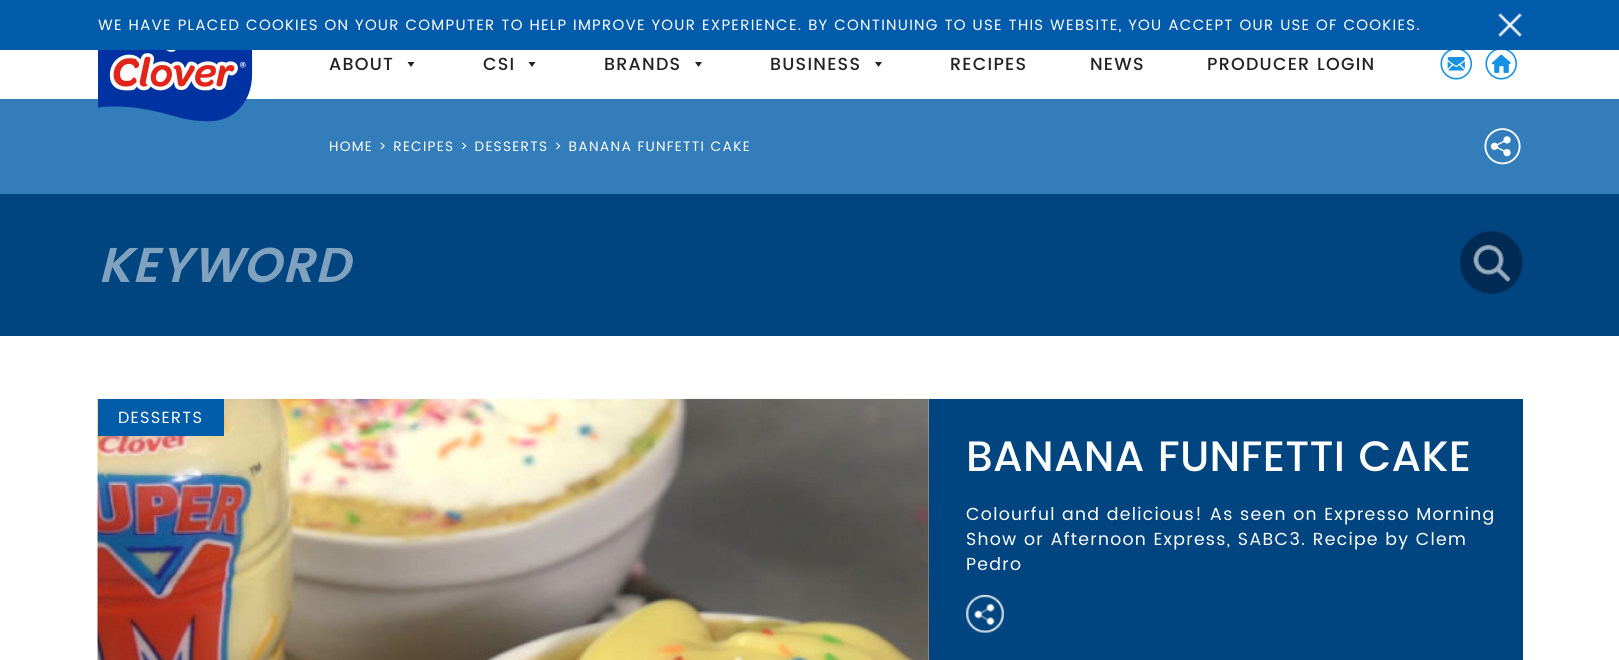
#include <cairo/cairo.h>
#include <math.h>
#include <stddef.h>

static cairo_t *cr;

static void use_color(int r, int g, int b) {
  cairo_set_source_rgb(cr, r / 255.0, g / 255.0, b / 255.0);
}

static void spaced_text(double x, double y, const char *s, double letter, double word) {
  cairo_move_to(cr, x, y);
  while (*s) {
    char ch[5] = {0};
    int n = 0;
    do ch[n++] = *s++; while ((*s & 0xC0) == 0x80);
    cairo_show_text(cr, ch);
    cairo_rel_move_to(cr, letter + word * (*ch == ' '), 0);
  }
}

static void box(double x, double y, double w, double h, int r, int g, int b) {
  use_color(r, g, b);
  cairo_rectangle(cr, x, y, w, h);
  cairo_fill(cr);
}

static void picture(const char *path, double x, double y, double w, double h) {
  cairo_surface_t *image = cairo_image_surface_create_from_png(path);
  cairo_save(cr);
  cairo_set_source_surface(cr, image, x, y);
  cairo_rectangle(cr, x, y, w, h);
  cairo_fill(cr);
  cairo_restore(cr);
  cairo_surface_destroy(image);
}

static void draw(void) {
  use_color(255, 255, 255);
  cairo_paint(cr);
  box(0, 0, 1619, 50, 0, 91, 171);
  picture("img_01.png", 1498, 13, 24, 24);
  box(0, 99, 1619, 95, 51, 125, 186);
  picture("img_02.png", 98, 50, 155, 72);
  use_color(35, 35, 35);
  cairo_new_path(cr);
  cairo_move_to(cr, 414.5, 62);
  cairo_line_to(cr, 411, 67);
  cairo_line_to(cr, 407.5, 62);
  cairo_close_path(cr);
  cairo_fill(cr);
  cairo_new_path(cr);
  cairo_move_to(cr, 535.5, 62);
  cairo_line_to(cr, 532, 67);
  cairo_line_to(cr, 528.5, 62);
  cairo_close_path(cr);
  cairo_fill(cr);
  cairo_new_path(cr);
  cairo_move_to(cr, 702, 62);
  cairo_line_to(cr, 698.5, 67);
  cairo_line_to(cr, 695, 62);
  cairo_close_path(cr);
  cairo_fill(cr);
  cairo_new_path(cr);
  cairo_move_to(cr, 882, 62);
  cairo_line_to(cr, 878.5, 67);
  cairo_line_to(cr, 875, 62);
  cairo_close_path(cr);
  cairo_fill(cr);
  picture("img_03.png", 1440, 50, 33, 30);
  picture("img_04.png", 1485, 50, 33, 30);
  picture("img_05.png", 1484, 128, 37, 37);
  box(0, 194, 1619, 142, 0, 69, 127);
  picture("img_06.png", 1460, 231, 63, 63);
  picture("img_07.png", 97, 398, 832, 262);
  box(98, 399, 126, 37, 0, 92, 169);
  box(929, 399, 594, 261, 0, 69, 127);
  picture("img_08.png", 966, 595, 38, 38);
  cairo_select_font_face(cr, "Poppins", CAIRO_FONT_SLANT_NORMAL, CAIRO_FONT_WEIGHT_NORMAL);
  cairo_set_font_size(cr, 15);
  use_color(255, 255, 255);
  spaced_text(98, 30, "WE HAVE PLACED COOKIES ON YOUR COMPUTER TO HELP IMPROVE YOUR EXPERIENCE. BY CONTINUING TO USE THIS WEBSITE, YOU ACCEPT OUR USE OF COOKIES.", 1.25, 0);
  cairo_select_font_face(cr, "Poppins Medium", CAIRO_FONT_SLANT_NORMAL, CAIRO_FONT_WEIGHT_NORMAL);
  cairo_set_font_size(cr, 17.5);
  use_color(35, 35, 35);
  spaced_text(329, 70, "ABOUT", 1.25, 0);
  spaced_text(483, 70, "CSI", 1.25, 0);
  spaced_text(604, 70, "BRANDS", 1.25, 0);
  spaced_text(770, 70, "BUSINESS", 1.25, 0);
  spaced_text(950, 70, "RECIPES", 1.25, 0);
  spaced_text(1090, 70, "NEWS", 1.25, 0);
  spaced_text(1207, 70, "PRODUCER LOGIN", 1.25, 0);
  cairo_select_font_face(cr, "Poppins", CAIRO_FONT_SLANT_NORMAL, CAIRO_FONT_WEIGHT_NORMAL);
  cairo_set_font_size(cr, 13.75);
  use_color(255, 255, 255);
  spaced_text(329, 151, "HOME > RECIPES > DESSERTS > BANANA FUNFETTI CAKE", 1.25, 0);
  cairo_select_font_face(cr, "Poppins SemiBold", CAIRO_FONT_SLANT_ITALIC, CAIRO_FONT_WEIGHT_NORMAL);
  cairo_set_font_size(cr, 48.75);
  use_color(128, 162, 191);
  spaced_text(98, 282, "KEYWORD", 1, 0);
  cairo_select_font_face(cr, "Poppins", CAIRO_FONT_SLANT_NORMAL, CAIRO_FONT_WEIGHT_NORMAL);
  cairo_set_font_size(cr, 16.25);
  use_color(255, 255, 255);
  spaced_text(118, 423, "DESSERTS", 1.25, 0);
  cairo_select_font_face(cr, "Poppins Medium", CAIRO_FONT_SLANT_NORMAL, CAIRO_FONT_WEIGHT_NORMAL);
  cairo_set_font_size(cr, 42.5);
  spaced_text(966, 471, "BANANA FUNFETTI CAKE", 0.3, 0);
  cairo_select_font_face(cr, "Poppins", CAIRO_FONT_SLANT_NORMAL, CAIRO_FONT_WEIGHT_NORMAL);
  cairo_set_font_size(cr, 17.5);
  spaced_text(966, 520, "Colourful and delicious! As seen on Expresso Morning", 1.25, 0);
  spaced_text(966, 545, "Show or Afternoon Express, SABC3. Recipe by Clem", 1.25, 0);
  spaced_text(966, 570, "Pedro", 1.25, 0);
}

int main(void) {
  cairo_surface_t *surface = cairo_image_surface_create(CAIRO_FORMAT_RGB24, 1619, 660);
  cr = cairo_create(surface);
  cairo_font_options_t *options = cairo_font_options_create();
  cairo_font_options_set_hint_metrics(options, CAIRO_HINT_METRICS_OFF);
  cairo_font_options_set_hint_style(options, CAIRO_HINT_STYLE_NONE);
  cairo_set_font_options(cr, options);
  cairo_set_miter_limit(cr, 4);
  draw();
  cairo_surface_write_to_png(surface, "out.png");
  cairo_font_options_destroy(options);
  cairo_destroy(cr);
  cairo_surface_destroy(surface);
  return 0;
}
